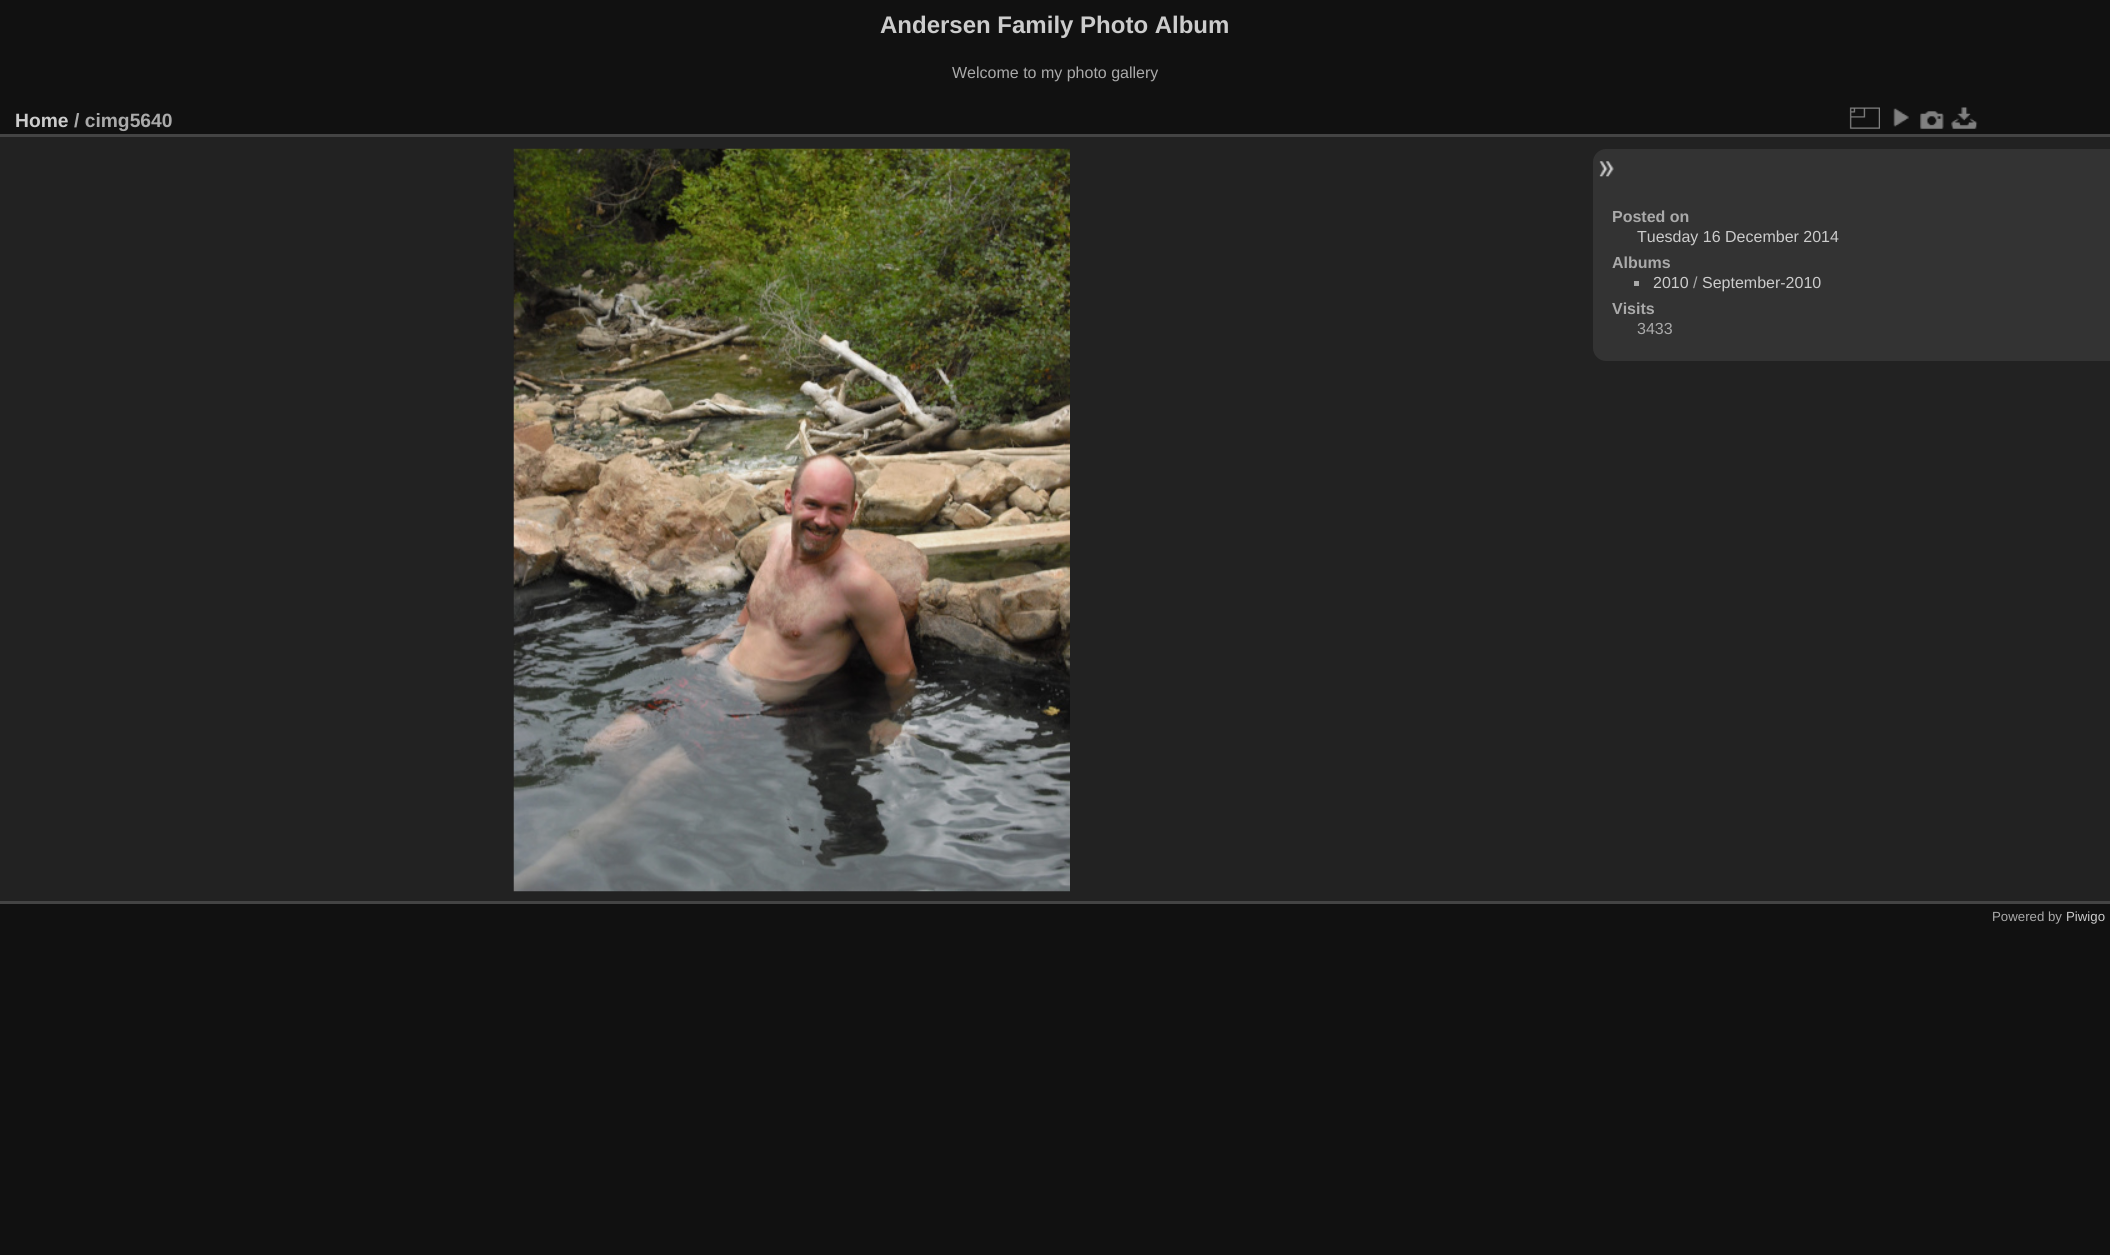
#include <cairo/cairo.h>
#include <math.h>
#include <stddef.h>

static cairo_t *cr;

static void use_color(int r, int g, int b) {
  cairo_set_source_rgb(cr, r / 255.0, g / 255.0, b / 255.0);
}

static void text(double x, double y, const char *s, const char *family, double size, int italic, int bold, int r, int g, int b) {
  cairo_select_font_face(cr, family, italic ? CAIRO_FONT_SLANT_ITALIC : CAIRO_FONT_SLANT_NORMAL,
    bold ? CAIRO_FONT_WEIGHT_BOLD : CAIRO_FONT_WEIGHT_NORMAL);
  cairo_set_font_size(cr, size);
  use_color(r, g, b);
  cairo_move_to(cr, x, y);
  cairo_show_text(cr, s);
}

static void box(double x, double y, double w, double h, int r, int g, int b) {
  use_color(r, g, b);
  cairo_rectangle(cr, x, y, w, h);
  cairo_fill(cr);
}

static void picture(const char *path, double x, double y, double w, double h) {
  cairo_surface_t *image = cairo_image_surface_create_from_png(path);
  cairo_save(cr);
  cairo_set_source_surface(cr, image, x, y);
  cairo_rectangle(cr, x, y, w, h);
  cairo_fill(cr);
  cairo_restore(cr);
  cairo_surface_destroy(image);
}

static void draw(void) {
  use_color(17, 17, 17);
  cairo_paint(cr);
  box(0, 137, 2110, 764, 34, 34, 34);
  box(0, 901, 2110, 3, 68, 68, 68);
  box(0, 134, 2110, 3, 68, 68, 68);
  picture("img_01.png", 1849, 107, 31, 22);
  picture("img_02.png", 1893, 108, 16, 19);
  picture("img_03.png", 1920, 111, 24, 18);
  picture("img_04.png", 1951, 107, 27, 22);
  picture("img_05.png", 513, 148, 557, 744);
  use_color(51, 51, 51);
  cairo_new_path(cr);
  cairo_move_to(cr, 1606, 149);
  cairo_line_to(cr, 2110, 149);
  cairo_line_to(cr, 2110, 361);
  cairo_line_to(cr, 1606, 361);
  cairo_curve_to(cr, 1599, 361, 1593, 355, 1593, 348);
  cairo_line_to(cr, 1593, 162);
  cairo_curve_to(cr, 1593, 155, 1599, 149, 1606, 149);
  cairo_close_path(cr);
  cairo_fill(cr);
  picture("img_06.png", 1599, 161, 15, 16);
  box(1634, 281, 5, 5, 170, 170, 170);
  text(880, 33, "Andersen Family Photo Album", "Liberation Sans", 24, 0, 1, 204, 204, 204);
  text(952, 78, "Welcome to my photo gallery", "Liberation Sans", 16, 0, 0, 170, 170, 170);
  text(15, 127, "Home", "Liberation Sans", 19.25, 0, 1, 204, 204, 204);
  text(74, 127, "/ cimg5640", "Liberation Sans", 19.25, 0, 1, 170, 170, 170);
  text(1612, 222, "Posted on", "Liberation Sans", 16, 0, 1, 170, 170, 170);
  text(1637, 242, "Tuesday 16 December 2014", "Liberation Sans", 16, 0, 0, 204, 204, 204);
  text(1612, 268, "Albums", "Liberation Sans", 16, 0, 1, 170, 170, 170);
  text(1653, 288, "2010", "Liberation Sans", 16, 0, 0, 204, 204, 204);
  text(1693, 288, "/", "Liberation Sans", 16, 0, 0, 170, 170, 170);
  text(1702, 288, "September-2010", "Liberation Sans", 16, 0, 0, 204, 204, 204);
  text(1612, 314, "Visits", "Liberation Sans", 16, 0, 1, 170, 170, 170);
  text(1637, 334, "3433", "Liberation Sans", 16, 0, 0, 170, 170, 170);
  text(1992, 921, "Powered by", "Liberation Sans", 13.25, 0, 0, 170, 170, 170);
  text(2066, 921, "Piwigo", "Liberation Sans", 13.25, 0, 0, 204, 204, 204);
}

int main(void) {
  cairo_surface_t *surface = cairo_image_surface_create(CAIRO_FORMAT_RGB24, 2110, 1255);
  cr = cairo_create(surface);
  cairo_font_options_t *options = cairo_font_options_create();
  cairo_font_options_set_hint_metrics(options, CAIRO_HINT_METRICS_OFF);
  cairo_font_options_set_hint_style(options, CAIRO_HINT_STYLE_NONE);
  cairo_set_font_options(cr, options);
  cairo_set_miter_limit(cr, 4);
  draw();
  cairo_surface_write_to_png(surface, "out.png");
  cairo_font_options_destroy(options);
  cairo_destroy(cr);
  cairo_surface_destroy(surface);
  return 0;
}
